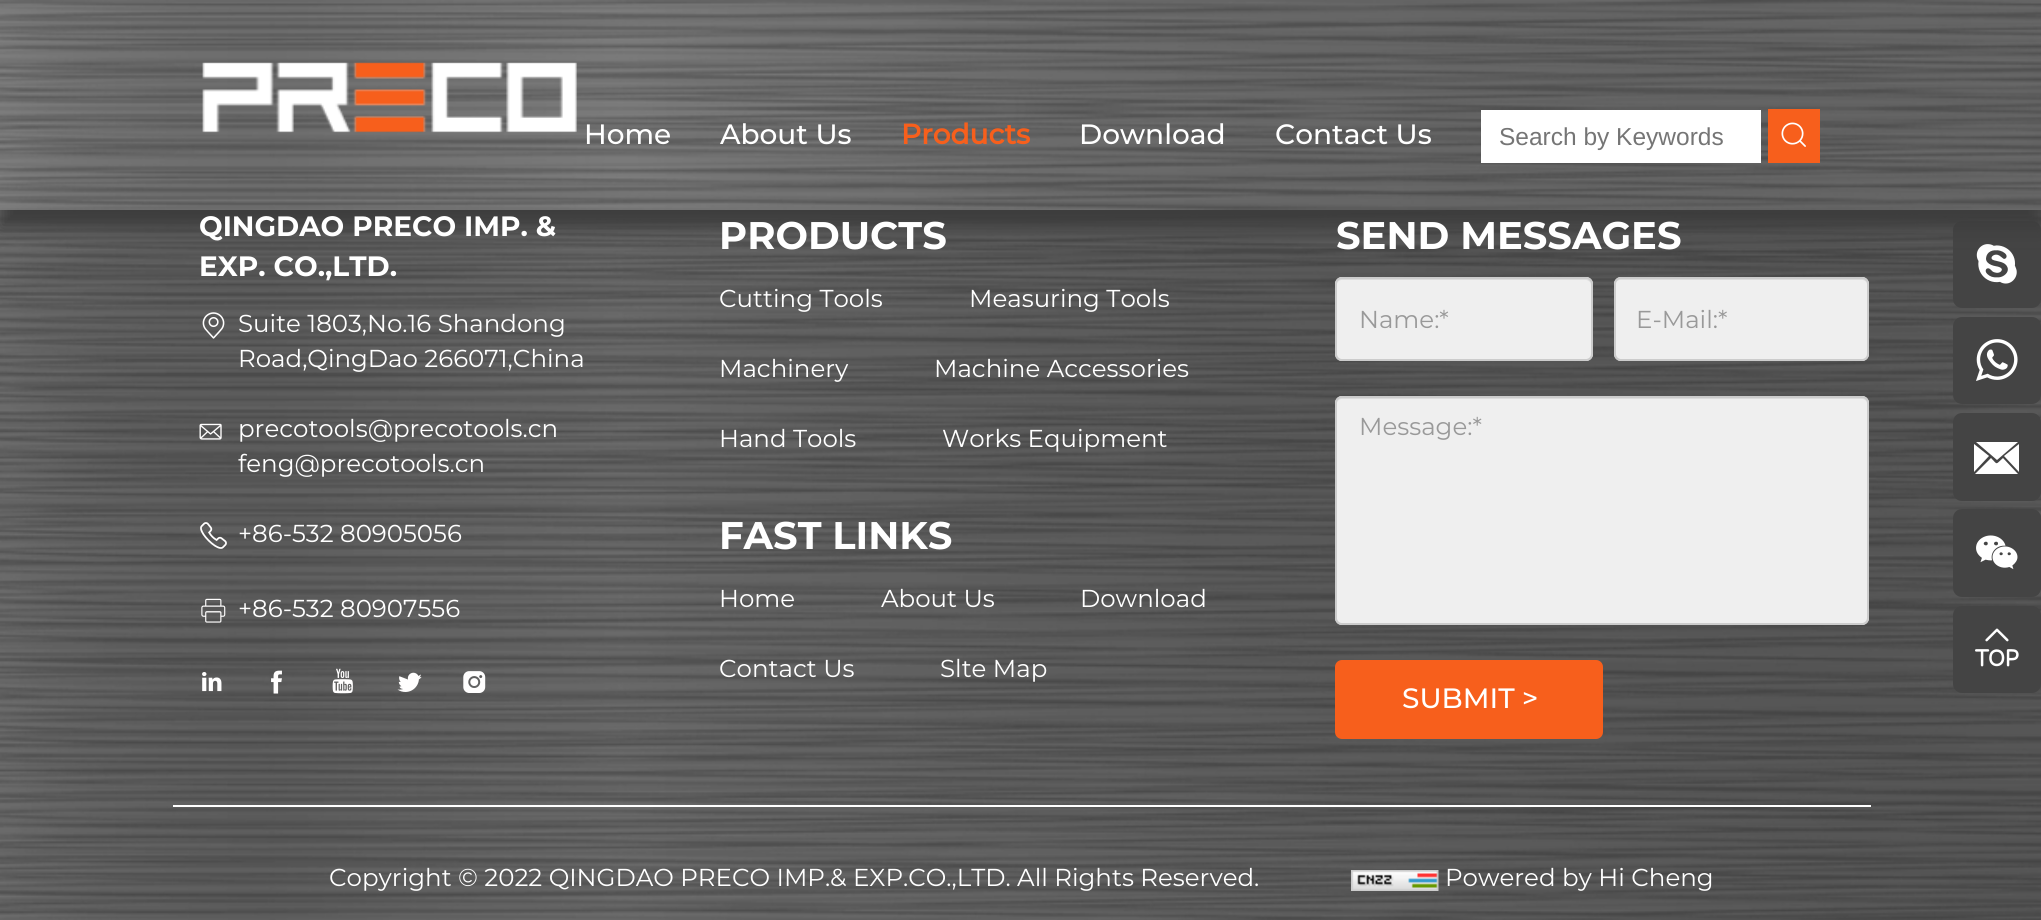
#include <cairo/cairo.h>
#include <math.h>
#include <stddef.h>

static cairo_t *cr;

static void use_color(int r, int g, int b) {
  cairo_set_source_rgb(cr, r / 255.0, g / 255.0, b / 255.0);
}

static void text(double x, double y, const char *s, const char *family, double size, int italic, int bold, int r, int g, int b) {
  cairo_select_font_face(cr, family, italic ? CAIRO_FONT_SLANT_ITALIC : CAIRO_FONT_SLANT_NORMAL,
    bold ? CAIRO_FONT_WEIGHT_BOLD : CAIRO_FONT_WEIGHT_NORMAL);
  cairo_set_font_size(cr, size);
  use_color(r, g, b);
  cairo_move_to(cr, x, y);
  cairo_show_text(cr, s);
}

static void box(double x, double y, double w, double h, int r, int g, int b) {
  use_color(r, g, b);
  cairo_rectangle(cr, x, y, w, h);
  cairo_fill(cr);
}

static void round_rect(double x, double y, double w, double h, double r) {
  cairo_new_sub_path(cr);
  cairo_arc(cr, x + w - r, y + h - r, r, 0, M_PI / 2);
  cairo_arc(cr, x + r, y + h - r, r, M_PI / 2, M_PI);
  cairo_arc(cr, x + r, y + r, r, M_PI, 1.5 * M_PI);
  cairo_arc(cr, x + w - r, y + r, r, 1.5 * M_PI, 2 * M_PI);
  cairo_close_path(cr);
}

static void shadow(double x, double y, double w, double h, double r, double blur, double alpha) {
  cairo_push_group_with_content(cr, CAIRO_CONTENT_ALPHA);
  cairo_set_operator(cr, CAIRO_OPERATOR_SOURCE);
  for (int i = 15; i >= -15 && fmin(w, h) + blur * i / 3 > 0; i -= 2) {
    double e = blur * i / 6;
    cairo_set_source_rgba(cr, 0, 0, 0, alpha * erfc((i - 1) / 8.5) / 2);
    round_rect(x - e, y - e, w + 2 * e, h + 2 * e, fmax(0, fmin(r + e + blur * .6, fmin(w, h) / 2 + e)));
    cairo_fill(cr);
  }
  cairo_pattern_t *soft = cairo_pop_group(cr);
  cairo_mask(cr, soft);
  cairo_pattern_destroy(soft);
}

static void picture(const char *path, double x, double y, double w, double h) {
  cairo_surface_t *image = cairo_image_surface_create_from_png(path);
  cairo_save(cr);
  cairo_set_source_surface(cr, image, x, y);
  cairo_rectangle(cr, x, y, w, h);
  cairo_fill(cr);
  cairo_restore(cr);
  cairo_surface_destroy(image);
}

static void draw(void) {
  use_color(255, 255, 255);
  cairo_paint(cr);
  picture("img_04.png", 0, 210, 2041, 710);
  use_color(68, 68, 68);
  round_rect(1953, 221, 88, 87, 9);
  cairo_fill(cr);
  picture("img_15.png", 1976, 244, 41, 40);
  use_color(60, 60, 60);
  shadow(0, 18, 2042, 210, 0, 9, 1);
  picture("img_01.png", 0, 0, 2041, 210);
  picture("img_02.png", 202, 62, 375, 71);
  box(1481, 110, 280, 53, 255, 255, 255);
  box(1768, 109, 52, 54, 247, 95, 28);
  picture("img_03.png", 1781, 122, 25, 25);
  box(173, 805, 1698, 2, 255, 255, 255);
  picture("img_05.png", 202, 312, 23, 27);
  picture("img_06.png", 199, 423, 23, 17);
  picture("img_07.png", 200, 522, 27, 27);
  picture("img_08.png", 201, 598, 25, 25);
  picture("img_09.png", 202, 672, 20, 20);
  picture("img_10.png", 271, 670, 11, 24);
  picture("img_11.png", 332, 668, 21, 26);
  picture("img_12.png", 397, 672, 25, 20);
  picture("img_13.png", 463, 671, 23, 22);
  use_color(239, 239, 239);
  round_rect(1335, 277, 258, 84, 7);
  cairo_fill(cr);
  use_color(221, 221, 221);
  cairo_new_path(cr);
  cairo_move_to(cr, 1342, 280);
  cairo_line_to(cr, 1586, 280);
  cairo_curve_to(cr, 1588, 280, 1591, 282, 1591, 285);
  cairo_curve_to(cr, 1591, 282, 1590, 278, 1586, 278);
  cairo_line_to(cr, 1342, 278);
  cairo_curve_to(cr, 1338, 278, 1337, 282, 1337, 285);
  cairo_curve_to(cr, 1337, 282, 1339, 280, 1342, 280);
  cairo_close_path(cr);
  cairo_fill(cr);
  round_rect(1336, 278, 256, 82, 6);
  use_color(204, 204, 204);
  cairo_stroke(cr);
  use_color(239, 239, 239);
  round_rect(1614, 277, 255, 84, 7);
  cairo_fill(cr);
  use_color(221, 221, 221);
  cairo_new_path(cr);
  cairo_move_to(cr, 1620, 280);
  cairo_line_to(cr, 1862, 280);
  cairo_curve_to(cr, 1865, 280, 1867, 282, 1867, 285);
  cairo_curve_to(cr, 1867, 282, 1866, 278, 1862, 278);
  cairo_line_to(cr, 1620, 278);
  cairo_curve_to(cr, 1616, 278, 1615, 282, 1615, 285);
  cairo_curve_to(cr, 1615, 282, 1618, 280, 1620, 280);
  cairo_close_path(cr);
  cairo_fill(cr);
  round_rect(1615, 278, 253, 82, 6);
  use_color(204, 204, 204);
  cairo_stroke(cr);
  use_color(239, 239, 239);
  round_rect(1335, 396, 534, 229, 7);
  cairo_fill(cr);
  use_color(221, 221, 221);
  cairo_new_path(cr);
  cairo_move_to(cr, 1342, 399);
  cairo_line_to(cr, 1862, 399);
  cairo_curve_to(cr, 1865, 399, 1867, 401, 1867, 404);
  cairo_curve_to(cr, 1867, 401, 1866, 397, 1862, 397);
  cairo_line_to(cr, 1342, 397);
  cairo_curve_to(cr, 1338, 397, 1337, 401, 1337, 404);
  cairo_curve_to(cr, 1337, 401, 1339, 399, 1342, 399);
  cairo_close_path(cr);
  cairo_fill(cr);
  round_rect(1336, 397, 532, 227, 6);
  use_color(204, 204, 204);
  cairo_stroke(cr);
  use_color(247, 95, 28);
  round_rect(1335, 660, 268, 79, 7);
  cairo_fill(cr);
  picture("img_14.png", 1351, 870, 88, 21);
  use_color(68, 68, 68);
  round_rect(1953, 317, 88, 87, 9);
  cairo_fill(cr);
  picture("img_16.png", 1976, 339, 42, 42);
  round_rect(1953, 413, 88, 88, 9);
  cairo_fill(cr);
  use_color(255, 255, 255);
  cairo_new_path(cr);
  cairo_move_to(cr, 1997, 460);
  cairo_line_to(cr, 1976, 442);
  cairo_line_to(cr, 2018, 442);
  cairo_close_path(cr);
  cairo_move_to(cr, 2019, 444);
  cairo_line_to(cr, 2019, 472);
  cairo_line_to(cr, 2004, 456);
  cairo_close_path(cr);
  cairo_move_to(cr, 1974, 444);
  cairo_line_to(cr, 1989, 456);
  cairo_line_to(cr, 1974, 472);
  cairo_close_path(cr);
  cairo_move_to(cr, 2003, 458);
  cairo_line_to(cr, 2018, 474);
  cairo_line_to(cr, 1975, 474);
  cairo_line_to(cr, 1991, 458);
  cairo_curve_to(cr, 1998, 465, 1995, 465, 2003, 458);
  cairo_close_path(cr);
  cairo_fill(cr);
  use_color(68, 68, 68);
  round_rect(1953, 509, 88, 88, 9);
  cairo_fill(cr);
  picture("img_17.png", 1976, 535, 42, 35);
  round_rect(1953, 606, 88, 87, 9);
  cairo_fill(cr);
  picture("img_18.png", 1975, 628, 44, 39);
  text(584, 144, "Home", "Montserrat Medium", 28, 0, 0, 255, 255, 255);
  text(720, 144, "About Us", "Montserrat Medium", 28, 0, 0, 255, 255, 255);
  text(901, 144, "Products", "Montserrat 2", 28, 0, 1, 247, 95, 28);
  text(1079, 144, "Download", "Montserrat Medium", 28, 0, 0, 255, 255, 255);
  text(1275, 144, "Contact Us", "Montserrat Medium", 28, 0, 0, 255, 255, 255);
  text(1499, 145, "Search by Keywords", "Liberation Sans", 24.5, 0, 0, 117, 117, 117);
  text(199, 236, "QINGDAO PRECO IMP. &", "Montserrat", 28, 0, 1, 255, 255, 255);
  text(199, 276, "EXP. CO.,LTD.", "Montserrat", 28, 0, 1, 255, 255, 255);
  text(238, 332, "Suite 1803,No.16 Shandong", "Montserrat", 24.5, 0, 0, 255, 255, 255);
  text(238, 367, "Road,QingDao 266071,China", "Montserrat", 24.5, 0, 0, 255, 255, 255);
  text(238, 437, "precotools@precotools.cn", "Montserrat", 24.5, 0, 0, 255, 255, 255);
  text(238, 472, "feng@precotools.cn", "Montserrat", 24.5, 0, 0, 255, 255, 255);
  text(238, 542, "+86-532 80905056", "Montserrat", 24.5, 0, 0, 255, 255, 255);
  text(238, 617, "+86-532 80907556", "Montserrat", 24.5, 0, 0, 255, 255, 255);
  text(719, 249, "PRODUCTS", "Montserrat", 38.5, 0, 1, 255, 255, 255);
  text(719, 307, "Cutting Tools", "Montserrat", 24.5, 0, 0, 255, 255, 255);
  text(969, 307, "Measuring Tools", "Montserrat", 24.5, 0, 0, 255, 255, 255);
  text(719, 377, "Machinery", "Montserrat", 24.5, 0, 0, 255, 255, 255);
  text(934, 377, "Machine Accessories", "Montserrat", 24.5, 0, 0, 255, 255, 255);
  text(719, 447, "Hand Tools", "Montserrat", 24.5, 0, 0, 255, 255, 255);
  text(942, 447, "Works Equipment", "Montserrat", 24.5, 0, 0, 255, 255, 255);
  text(719, 549, "FAST LINKS", "Montserrat", 38.5, 0, 1, 255, 255, 255);
  text(719, 607, "Home", "Montserrat", 24.5, 0, 0, 255, 255, 255);
  text(881, 607, "About Us", "Montserrat", 24.5, 0, 0, 255, 255, 255);
  text(1080, 607, "Download", "Montserrat", 24.5, 0, 0, 255, 255, 255);
  text(719, 677, "Contact Us", "Montserrat", 24.5, 0, 0, 255, 255, 255);
  text(940, 677, "Slte Map", "Montserrat", 24.5, 0, 0, 255, 255, 255);
  text(1336, 249, "SEND MESSAGES", "Montserrat", 38.5, 0, 1, 255, 255, 255);
  text(1359, 328, "Name:*", "Montserrat", 24.5, 0, 0, 153, 153, 153);
  text(1636, 328, "E-Mail:*", "Montserrat", 24.5, 0, 0, 153, 153, 153);
  text(1359, 435, "Message:*", "Montserrat", 24.5, 0, 0, 153, 153, 153);
  text(1402, 708, "SUBMIT >", "Montserrat Medium", 28, 0, 0, 255, 255, 255);
  text(329, 886, "Copyright © 2022 QINGDAO PRECO IMP.& EXP.CO.,LTD. All Rights Reserved.", "Montserrat", 24.5, 0, 0, 255, 255, 255);
  text(1445, 886, "Powered by Hi Cheng", "Montserrat", 24.5, 0, 0, 255, 255, 255);
}

int main(void) {
  cairo_surface_t *surface = cairo_image_surface_create(CAIRO_FORMAT_RGB24, 2041, 920);
  cr = cairo_create(surface);
  cairo_font_options_t *options = cairo_font_options_create();
  cairo_font_options_set_hint_metrics(options, CAIRO_HINT_METRICS_OFF);
  cairo_font_options_set_hint_style(options, CAIRO_HINT_STYLE_NONE);
  cairo_set_font_options(cr, options);
  cairo_set_miter_limit(cr, 4);
  draw();
  cairo_surface_write_to_png(surface, "out.png");
  cairo_font_options_destroy(options);
  cairo_destroy(cr);
  cairo_surface_destroy(surface);
  return 0;
}
